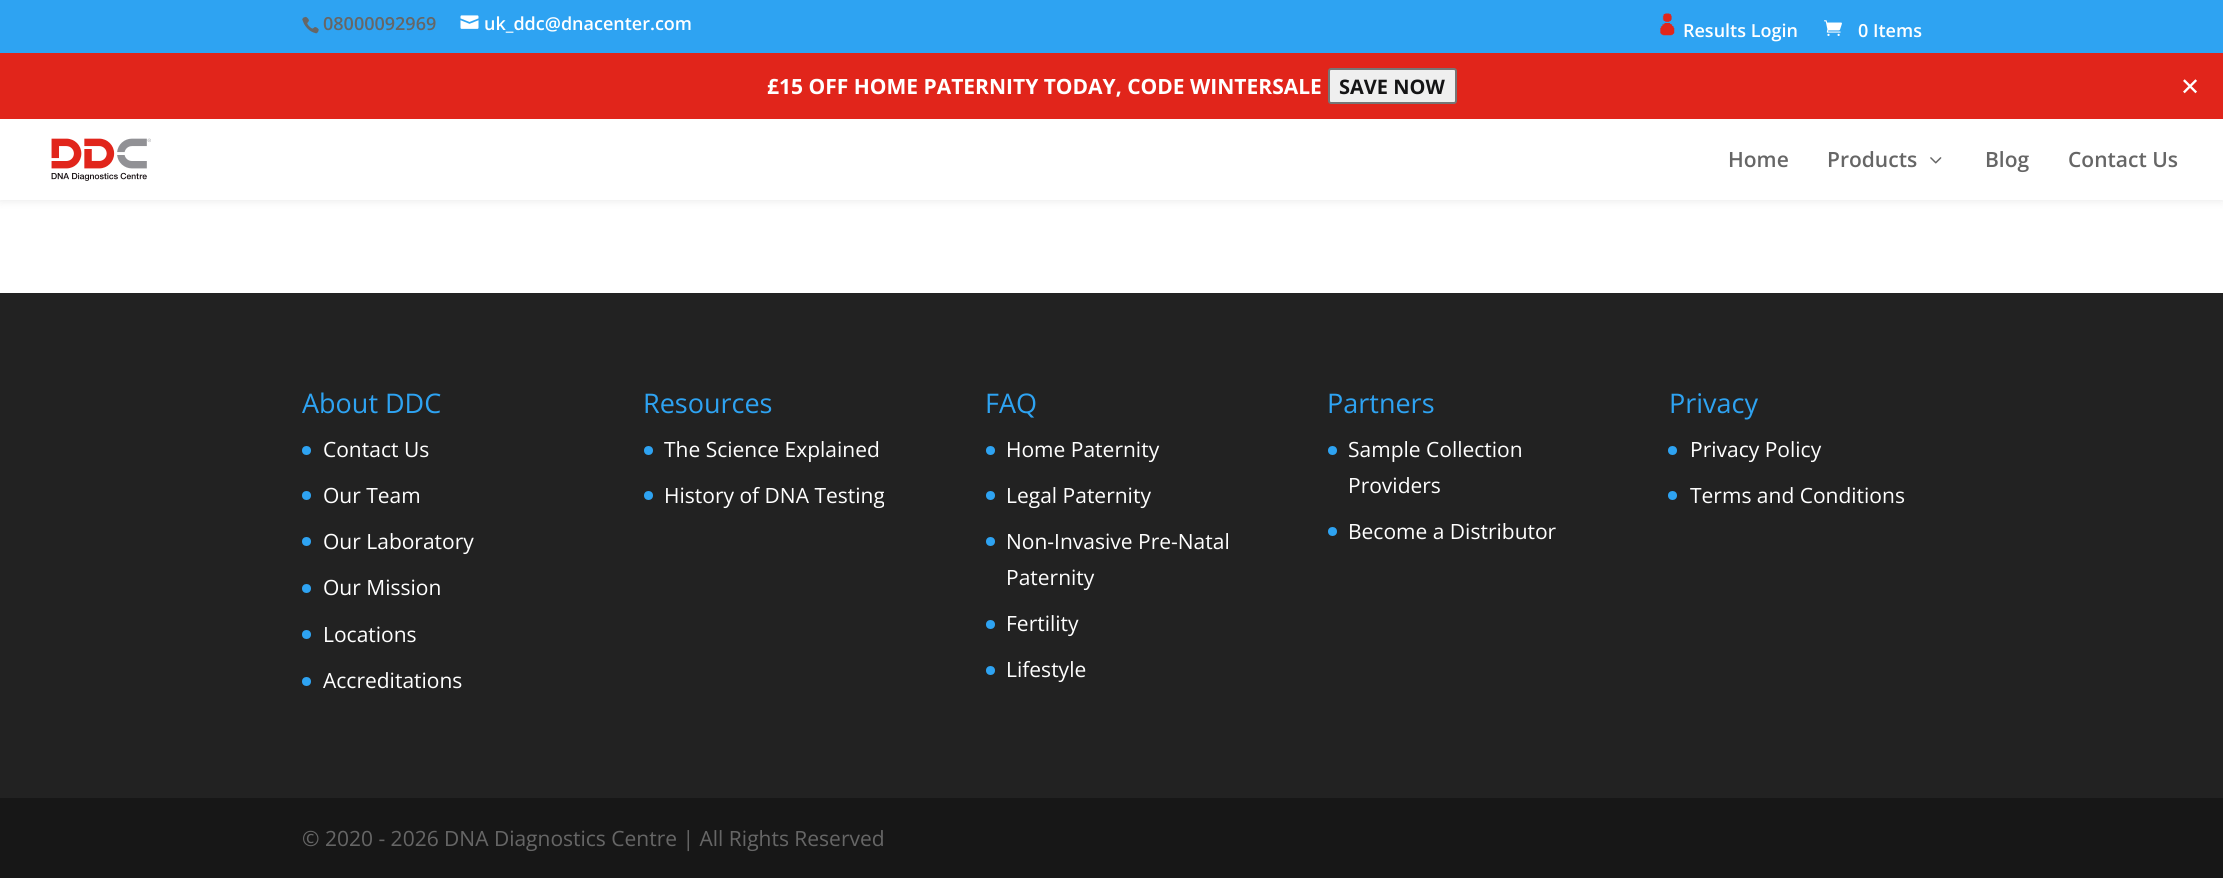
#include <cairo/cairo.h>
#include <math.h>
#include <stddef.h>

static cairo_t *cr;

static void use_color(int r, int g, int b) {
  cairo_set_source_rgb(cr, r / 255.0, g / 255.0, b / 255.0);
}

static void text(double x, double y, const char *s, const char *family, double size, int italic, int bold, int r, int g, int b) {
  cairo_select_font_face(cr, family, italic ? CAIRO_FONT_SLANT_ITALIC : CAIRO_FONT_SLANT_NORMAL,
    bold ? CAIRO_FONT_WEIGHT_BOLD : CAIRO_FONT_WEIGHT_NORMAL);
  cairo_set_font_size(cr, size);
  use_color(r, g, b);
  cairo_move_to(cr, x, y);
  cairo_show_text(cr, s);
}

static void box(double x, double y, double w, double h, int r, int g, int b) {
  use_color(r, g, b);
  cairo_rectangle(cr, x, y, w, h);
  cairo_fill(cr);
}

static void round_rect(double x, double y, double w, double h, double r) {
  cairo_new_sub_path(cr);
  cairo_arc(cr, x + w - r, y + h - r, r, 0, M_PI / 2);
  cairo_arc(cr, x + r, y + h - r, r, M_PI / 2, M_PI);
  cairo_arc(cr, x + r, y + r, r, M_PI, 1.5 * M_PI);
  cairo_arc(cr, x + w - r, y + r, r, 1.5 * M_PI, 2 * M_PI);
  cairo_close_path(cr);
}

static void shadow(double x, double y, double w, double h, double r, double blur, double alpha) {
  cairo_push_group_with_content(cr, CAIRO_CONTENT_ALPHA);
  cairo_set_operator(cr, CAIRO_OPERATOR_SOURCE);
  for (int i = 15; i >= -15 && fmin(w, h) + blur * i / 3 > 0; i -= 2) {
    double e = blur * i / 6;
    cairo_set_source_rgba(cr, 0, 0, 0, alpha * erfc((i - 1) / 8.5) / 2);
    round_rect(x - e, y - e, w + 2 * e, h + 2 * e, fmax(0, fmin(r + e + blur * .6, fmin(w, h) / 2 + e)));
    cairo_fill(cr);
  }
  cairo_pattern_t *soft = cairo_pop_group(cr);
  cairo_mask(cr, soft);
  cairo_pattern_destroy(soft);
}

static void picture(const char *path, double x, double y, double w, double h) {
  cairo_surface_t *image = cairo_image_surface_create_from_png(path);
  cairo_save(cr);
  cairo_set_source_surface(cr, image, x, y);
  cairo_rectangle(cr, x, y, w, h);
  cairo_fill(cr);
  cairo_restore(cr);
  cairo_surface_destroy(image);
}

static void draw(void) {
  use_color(255, 255, 255);
  cairo_paint(cr);
  use_color(0, 0, 0);
  shadow(0, 53, 2223, 147, 0, 5, 0.1);
  box(0, 0, 2223, 53, 46, 163, 242);
  picture("img_01.png", 302, 16, 17, 18);
  picture("img_02.png", 460, 15, 19, 14);
  picture("img_03.png", 1660, 13, 15, 23);
  picture("img_04.png", 1824, 20, 18, 16);
  box(0, 119, 2223, 81, 255, 255, 255);
  box(0, 53, 2223, 66, 225, 37, 27);
  use_color(239, 239, 239);
  round_rect(1329, 69, 127, 34, 2);
  cairo_fill_preserve(cr);
  use_color(118, 118, 118);
  cairo_stroke(cr);
  picture("img_05.png", 51, 138, 100, 43);
  picture("img_06.png", 1930, 157, 12, 7);
  box(0, 293, 2223, 505, 34, 34, 34);
  use_color(46, 163, 242);
  cairo_arc(cr, 306.5, 450.5, 4.5, 0, 2 * M_PI);
  cairo_fill(cr);
  cairo_arc(cr, 306.5, 495.5, 4.5, 0, 2 * M_PI);
  cairo_fill(cr);
  cairo_arc(cr, 306.5, 541.5, 4.5, 0, 2 * M_PI);
  cairo_fill(cr);
  cairo_arc(cr, 306.5, 588.5, 4.5, 0, 2 * M_PI);
  cairo_fill(cr);
  cairo_arc(cr, 306.5, 634.5, 4.5, 0, 2 * M_PI);
  cairo_fill(cr);
  cairo_arc(cr, 306.5, 681.5, 4.5, 0, 2 * M_PI);
  cairo_fill(cr);
  cairo_arc(cr, 648.5, 450.5, 4.5, 0, 2 * M_PI);
  cairo_fill(cr);
  cairo_arc(cr, 648.5, 495.5, 4.5, 0, 2 * M_PI);
  cairo_fill(cr);
  cairo_arc(cr, 990.5, 450.5, 4.5, 0, 2 * M_PI);
  cairo_fill(cr);
  cairo_arc(cr, 990.5, 495.5, 4.5, 0, 2 * M_PI);
  cairo_fill(cr);
  cairo_arc(cr, 990.5, 541.5, 4.5, 0, 2 * M_PI);
  cairo_fill(cr);
  cairo_arc(cr, 990.5, 624.5, 4.5, 0, 2 * M_PI);
  cairo_fill(cr);
  cairo_arc(cr, 990.5, 670.5, 4.5, 0, 2 * M_PI);
  cairo_fill(cr);
  cairo_arc(cr, 1332.5, 450.5, 4.5, 0, 2 * M_PI);
  cairo_fill(cr);
  cairo_arc(cr, 1332.5, 531.5, 4.5, 0, 2 * M_PI);
  cairo_fill(cr);
  cairo_arc(cr, 1672.5, 450.5, 4.5, 0, 2 * M_PI);
  cairo_fill(cr);
  cairo_arc(cr, 1672.5, 495.5, 4.5, 0, 2 * M_PI);
  cairo_fill(cr);
  box(0, 798, 2223, 80, 23, 23, 23);
  text(323, 30, "08000092969", "Open Sans SemiBold", 18, 0, 0, 102, 102, 102);
  text(484, 30, "uk_ddc@dnacenter.com", "Open Sans SemiBold", 18, 0, 0, 255, 255, 255);
  text(1683, 37, "Results Login", "Open Sans SemiBold", 18, 0, 0, 255, 255, 255);
  text(1858, 37, "0 Items", "Open Sans SemiBold", 18, 0, 0, 255, 255, 255);
  text(767, 94, "£15 OFF HOME PATERNITY TODAY, CODE WINTERSALE", "Open Sans", 21, 0, 1, 255, 255, 255);
  text(1339, 94, "SAVE NOW", "Open Sans", 20, 0, 1, 20, 20, 21);
  text(2180, 95, "✕", "DejaVu Sans", 24, 0, 0, 255, 255, 255);
  text(1728, 167, "Home", "Open Sans SemiBold", 21, 0, 0, 102, 102, 102);
  text(1827, 167, "Products", "Open Sans SemiBold", 21, 0, 0, 102, 102, 102);
  text(1985, 167, "Blog", "Open Sans SemiBold", 21, 0, 0, 102, 102, 102);
  text(2068, 167, "Contact Us", "Open Sans SemiBold", 21, 0, 0, 102, 102, 102);
  text(302, 413, "About DDC", "Open Sans", 27, 0, 0, 46, 163, 242);
  text(323, 457, "Contact Us", "Open Sans", 21, 0, 0, 255, 255, 255);
  text(323, 503, "Our Team", "Open Sans", 21, 0, 0, 255, 255, 255);
  text(323, 549, "Our Laboratory", "Open Sans", 21, 0, 0, 255, 255, 255);
  text(323, 595, "Our Mission", "Open Sans", 21, 0, 0, 255, 255, 255);
  text(323, 642, "Locations", "Open Sans", 21, 0, 0, 255, 255, 255);
  text(323, 688, "Accreditations", "Open Sans", 21, 0, 0, 255, 255, 255);
  text(643, 413, "Resources", "Open Sans", 27, 0, 0, 46, 163, 242);
  text(664, 457, "The Science Explained", "Open Sans", 21, 0, 0, 255, 255, 255);
  text(664, 503, "History of DNA Testing", "Open Sans", 21, 0, 0, 255, 255, 255);
  text(985, 413, "FAQ", "Open Sans", 27, 0, 0, 46, 163, 242);
  text(1006, 457, "Home Paternity", "Open Sans", 21, 0, 0, 255, 255, 255);
  text(1006, 503, "Legal Paternity", "Open Sans", 21, 0, 0, 255, 255, 255);
  text(1006, 549, "Non-Invasive Pre-Natal", "Open Sans", 21, 0, 0, 255, 255, 255);
  text(1006, 585, "Paternity", "Open Sans", 21, 0, 0, 255, 255, 255);
  text(1006, 631, "Fertility", "Open Sans", 21, 0, 0, 255, 255, 255);
  text(1006, 677, "Lifestyle", "Open Sans", 21, 0, 0, 255, 255, 255);
  text(1327, 413, "Partners", "Open Sans", 27, 0, 0, 46, 163, 242);
  text(1348, 457, "Sample Collection", "Open Sans", 21, 0, 0, 255, 255, 255);
  text(1348, 493, "Providers", "Open Sans", 21, 0, 0, 255, 255, 255);
  text(1348, 539, "Become a Distributor", "Open Sans", 21, 0, 0, 255, 255, 255);
  text(1669, 413, "Privacy", "Open Sans", 27, 0, 0, 46, 163, 242);
  text(1690, 457, "Privacy Policy", "Open Sans", 21, 0, 0, 255, 255, 255);
  text(1690, 503, "Terms and Conditions", "Open Sans", 21, 0, 0, 255, 255, 255);
  text(302, 846, "© 2020 - 2026 DNA Diagnostics Centre | All Rights Reserved", "Open Sans", 21, 0, 0, 102, 102, 102);
}

int main(void) {
  cairo_surface_t *surface = cairo_image_surface_create(CAIRO_FORMAT_RGB24, 2223, 878);
  cr = cairo_create(surface);
  cairo_font_options_t *options = cairo_font_options_create();
  cairo_font_options_set_hint_metrics(options, CAIRO_HINT_METRICS_OFF);
  cairo_font_options_set_hint_style(options, CAIRO_HINT_STYLE_NONE);
  cairo_set_font_options(cr, options);
  cairo_set_miter_limit(cr, 4);
  draw();
  cairo_surface_write_to_png(surface, "out.png");
  cairo_font_options_destroy(options);
  cairo_destroy(cr);
  cairo_surface_destroy(surface);
  return 0;
}
